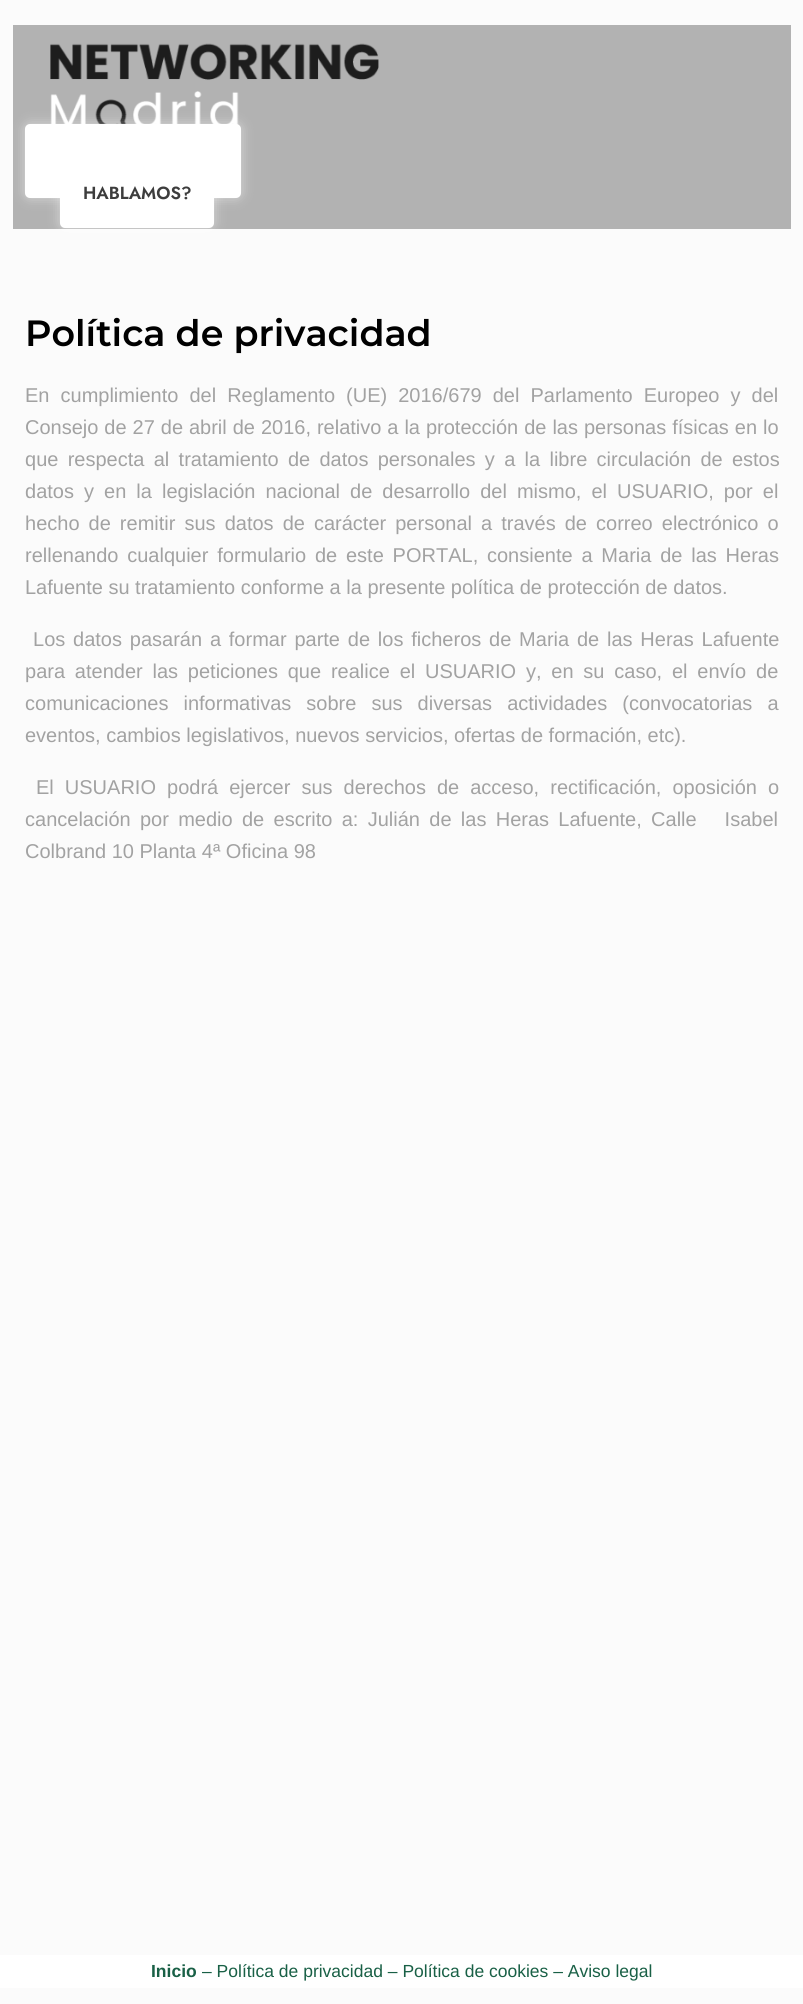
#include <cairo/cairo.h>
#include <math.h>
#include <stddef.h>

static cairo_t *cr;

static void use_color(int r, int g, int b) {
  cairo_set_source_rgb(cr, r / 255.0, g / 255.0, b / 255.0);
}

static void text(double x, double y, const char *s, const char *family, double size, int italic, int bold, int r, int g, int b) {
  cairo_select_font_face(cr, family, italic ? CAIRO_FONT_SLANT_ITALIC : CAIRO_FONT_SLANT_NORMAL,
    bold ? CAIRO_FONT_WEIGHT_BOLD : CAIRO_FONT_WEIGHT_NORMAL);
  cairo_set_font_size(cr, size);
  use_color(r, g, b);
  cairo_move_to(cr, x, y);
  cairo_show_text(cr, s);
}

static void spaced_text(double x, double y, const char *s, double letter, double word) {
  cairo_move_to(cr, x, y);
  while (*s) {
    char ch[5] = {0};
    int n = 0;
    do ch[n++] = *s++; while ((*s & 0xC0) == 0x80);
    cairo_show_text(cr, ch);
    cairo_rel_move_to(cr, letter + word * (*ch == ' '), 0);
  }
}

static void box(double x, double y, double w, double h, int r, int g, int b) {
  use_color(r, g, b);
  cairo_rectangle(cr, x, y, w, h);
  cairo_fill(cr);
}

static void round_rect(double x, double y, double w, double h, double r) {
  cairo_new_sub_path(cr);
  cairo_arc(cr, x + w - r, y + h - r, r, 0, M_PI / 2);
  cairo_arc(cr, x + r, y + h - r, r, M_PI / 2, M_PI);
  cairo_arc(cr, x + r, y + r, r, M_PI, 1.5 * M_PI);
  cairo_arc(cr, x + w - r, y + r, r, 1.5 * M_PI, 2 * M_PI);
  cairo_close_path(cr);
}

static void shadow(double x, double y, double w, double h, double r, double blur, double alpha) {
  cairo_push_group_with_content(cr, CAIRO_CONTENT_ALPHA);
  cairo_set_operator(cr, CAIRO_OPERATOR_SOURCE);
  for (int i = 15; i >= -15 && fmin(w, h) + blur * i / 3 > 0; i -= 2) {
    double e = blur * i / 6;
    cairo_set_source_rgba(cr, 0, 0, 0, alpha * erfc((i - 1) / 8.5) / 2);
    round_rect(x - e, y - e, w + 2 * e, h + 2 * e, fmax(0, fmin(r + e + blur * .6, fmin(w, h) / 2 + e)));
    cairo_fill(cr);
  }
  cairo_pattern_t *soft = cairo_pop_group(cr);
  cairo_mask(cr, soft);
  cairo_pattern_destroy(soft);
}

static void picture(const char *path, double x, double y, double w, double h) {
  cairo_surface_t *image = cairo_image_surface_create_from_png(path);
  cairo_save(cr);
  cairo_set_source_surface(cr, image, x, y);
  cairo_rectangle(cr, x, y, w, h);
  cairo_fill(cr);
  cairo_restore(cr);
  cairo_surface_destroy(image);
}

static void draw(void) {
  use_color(251, 251, 251);
  cairo_paint(cr);
  box(13, 25, 778, 204, 178, 178, 178);
  picture("img_01.png", 50, 43, 329, 82);
  use_color(255, 255, 255);
  shadow(25, 124, 216, 74, 5, 6, 0.5);
  use_color(255, 255, 255);
  round_rect(25, 124, 216, 74, 5);
  cairo_fill(cr);
  use_color(255, 255, 255);
  shadow(60, 158, 154, 70, 5, 6, 0.5);
  use_color(255, 255, 255);
  round_rect(60, 158, 154, 70, 5);
  cairo_fill(cr);
  box(0, 1955, 803, 33, 255, 255, 255);
  text(83, 199, "HABLAMOS?", "Jost SemiBold", 17.5, 0, 0, 61, 61, 61);
  text(25, 346, "Política de privacidad", "Montserrat SemiBold", 36.5, 0, 0, 0, 0, 0);
  cairo_select_font_face(cr, "Liberation Sans", CAIRO_FONT_SLANT_NORMAL, CAIRO_FONT_WEIGHT_NORMAL);
  cairo_set_font_size(cr, 20);
  use_color(162, 162, 162);
  spaced_text(25, 402, "En cumplimiento del Reglamento (UE) 2016/679 del Parlamento Europeo y del", 0, 5.5);
  spaced_text(25, 434, "Consejo de 27 de abril de 2016, relativo a la protección de las personas físicas en lo", 0, 0.4);
  spaced_text(25, 466, "que respecta al tratamiento de datos personales y a la libre circulación de estos", 0, 3.75);
  spaced_text(25, 498, "datos y en la legislación nacional de desarrollo del mismo, el USUARIO, por el", 0, 4.5);
  spaced_text(25, 530, "hecho de remitir sus datos de carácter personal a través de correo electrónico o", 0, 3.5);
  spaced_text(25, 562, "rellenando cualquier formulario de este PORTAL, consiente a Maria de las Heras", 0, 3.25);
  text(25, 594, "Lafuente su tratamiento conforme a la presente política de protección de datos.", "Liberation Sans", 20, 0, 0, 162, 162, 162);
  spaced_text(33, 646, "Los datos pasarán a formar parte de los ficheros de Maria de las Heras Lafuente", 0, 2.25);
  spaced_text(25, 678, "para atender las peticiones que realice el USUARIO y, en su caso, el envío de", 0, 4.25);
  spaced_text(25, 710, "comunicaciones informativas sobre sus diversas actividades (convocatorias a", 0, 9.5);
  text(25, 742, "eventos, cambios legislativos, nuevos servicios, ofertas de formación, etc).", "Liberation Sans", 20, 0, 0, 162, 162, 162);
  spaced_text(36, 794, "El USUARIO podrá ejercer sus derechos de acceso, rectificación, oposición o", 0, 5.5);
  spaced_text(25, 826, "cancelación por medio de escrito a: Julián de las Heras Lafuente, Calle   Isabel", 0, 3.75);
  text(25, 858, "Colbrand 10 Planta 4ª Oficina 98", "Liberation Sans", 20, 0, 0, 162, 162, 162);
  text(151, 1977, "Inicio", "Liberation Sans", 17.5, 0, 1, 25, 96, 70);
  text(202, 1977, "– Política de privacidad – Política de cookies – Aviso legal", "Liberation Sans", 17.5, 0, 0, 25, 96, 70);
}

int main(void) {
  cairo_surface_t *surface = cairo_image_surface_create(CAIRO_FORMAT_RGB24, 803, 2004);
  cr = cairo_create(surface);
  cairo_font_options_t *options = cairo_font_options_create();
  cairo_font_options_set_hint_metrics(options, CAIRO_HINT_METRICS_OFF);
  cairo_font_options_set_hint_style(options, CAIRO_HINT_STYLE_NONE);
  cairo_set_font_options(cr, options);
  cairo_set_miter_limit(cr, 4);
  draw();
  cairo_surface_write_to_png(surface, "out.png");
  cairo_font_options_destroy(options);
  cairo_destroy(cr);
  cairo_surface_destroy(surface);
  return 0;
}
